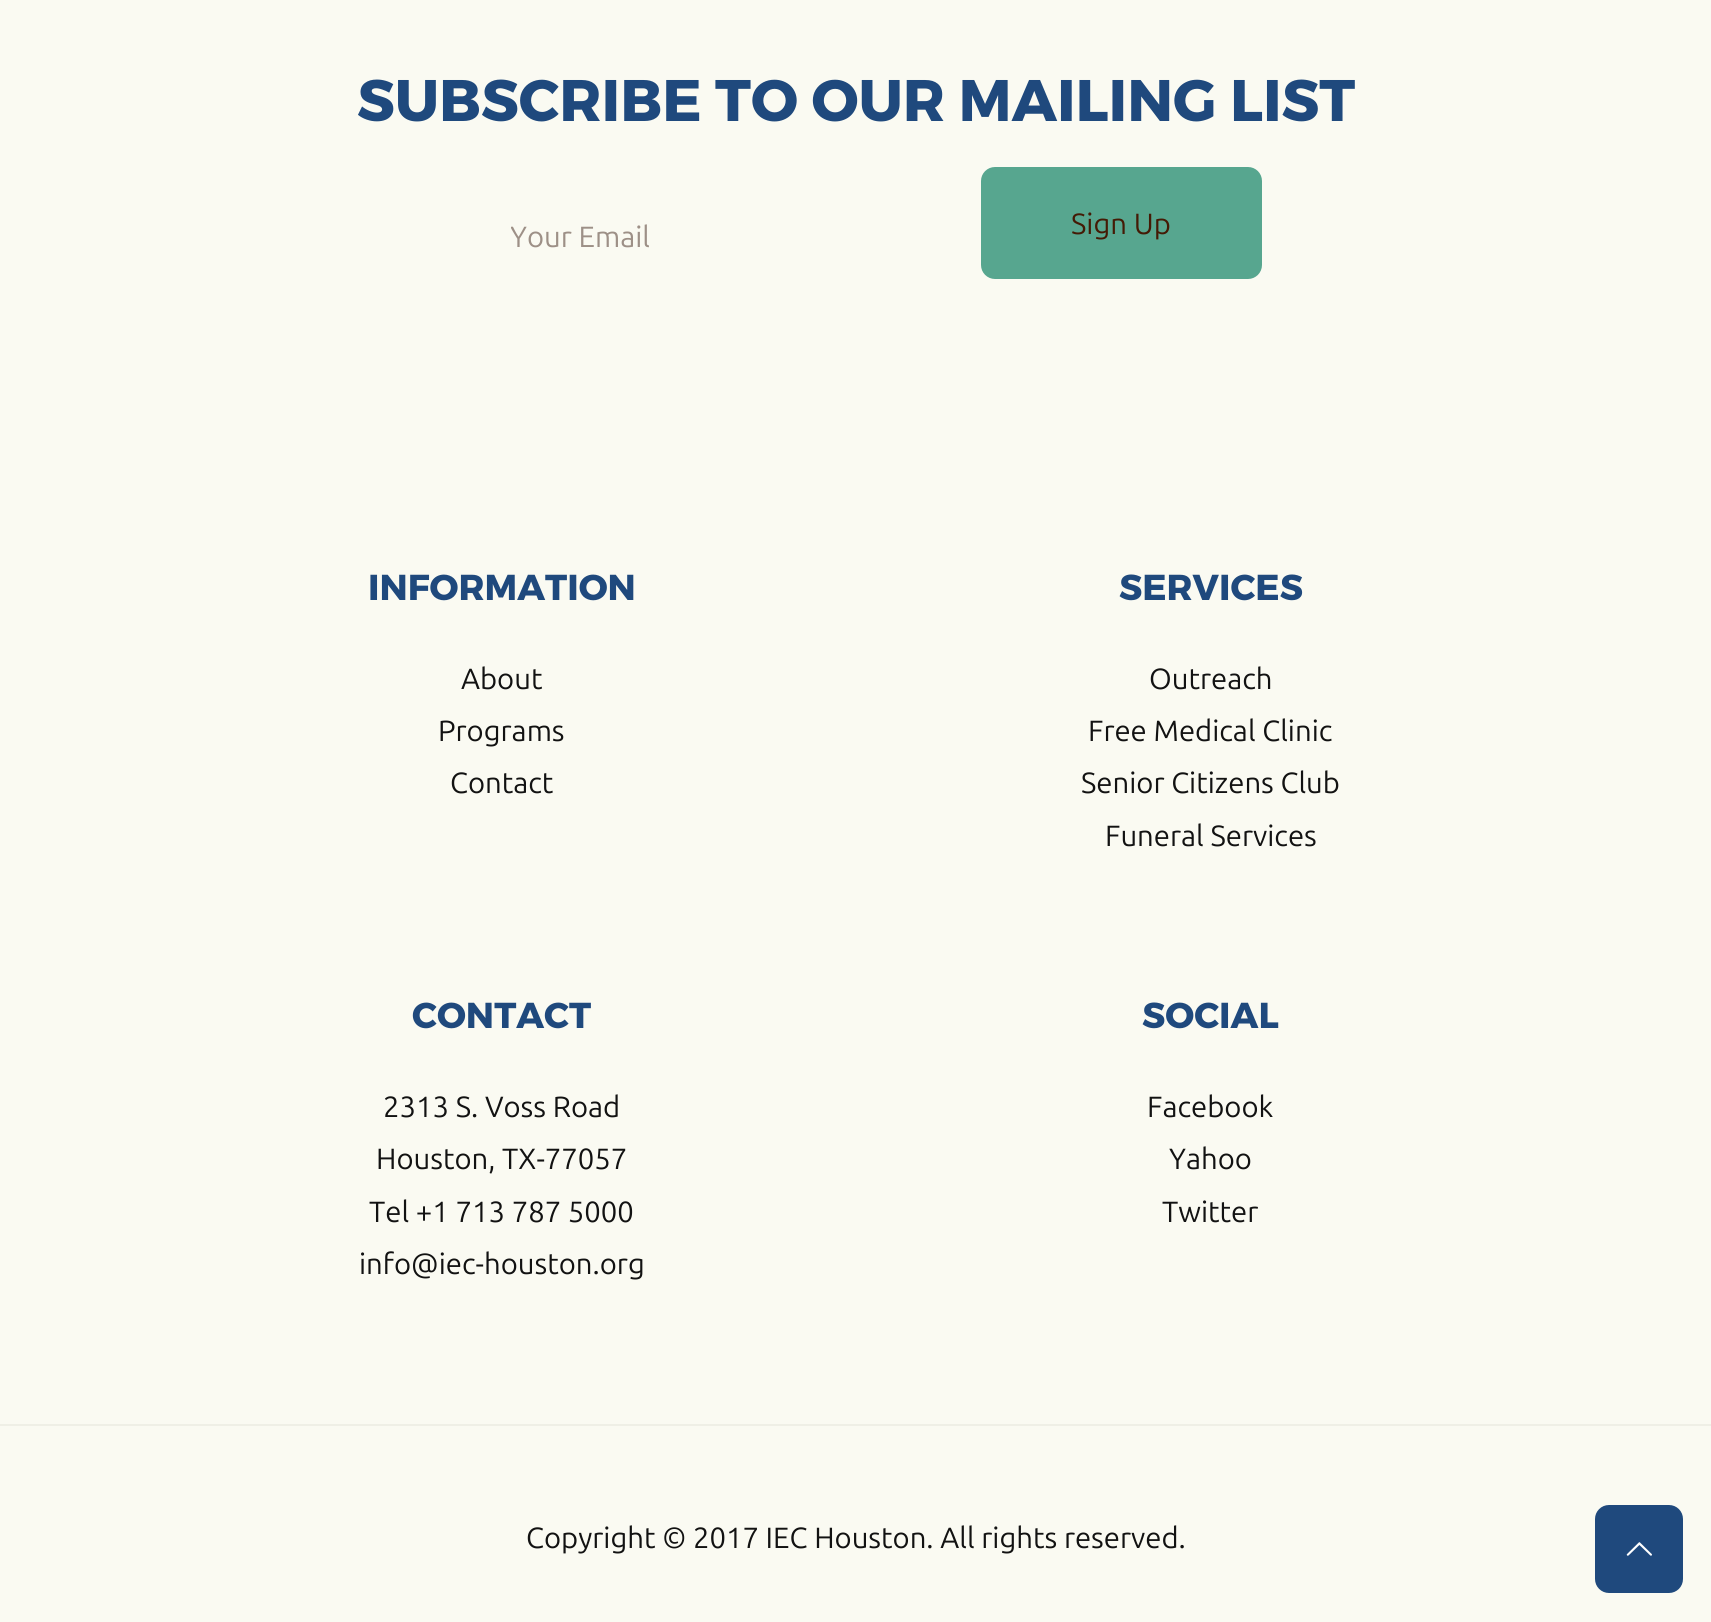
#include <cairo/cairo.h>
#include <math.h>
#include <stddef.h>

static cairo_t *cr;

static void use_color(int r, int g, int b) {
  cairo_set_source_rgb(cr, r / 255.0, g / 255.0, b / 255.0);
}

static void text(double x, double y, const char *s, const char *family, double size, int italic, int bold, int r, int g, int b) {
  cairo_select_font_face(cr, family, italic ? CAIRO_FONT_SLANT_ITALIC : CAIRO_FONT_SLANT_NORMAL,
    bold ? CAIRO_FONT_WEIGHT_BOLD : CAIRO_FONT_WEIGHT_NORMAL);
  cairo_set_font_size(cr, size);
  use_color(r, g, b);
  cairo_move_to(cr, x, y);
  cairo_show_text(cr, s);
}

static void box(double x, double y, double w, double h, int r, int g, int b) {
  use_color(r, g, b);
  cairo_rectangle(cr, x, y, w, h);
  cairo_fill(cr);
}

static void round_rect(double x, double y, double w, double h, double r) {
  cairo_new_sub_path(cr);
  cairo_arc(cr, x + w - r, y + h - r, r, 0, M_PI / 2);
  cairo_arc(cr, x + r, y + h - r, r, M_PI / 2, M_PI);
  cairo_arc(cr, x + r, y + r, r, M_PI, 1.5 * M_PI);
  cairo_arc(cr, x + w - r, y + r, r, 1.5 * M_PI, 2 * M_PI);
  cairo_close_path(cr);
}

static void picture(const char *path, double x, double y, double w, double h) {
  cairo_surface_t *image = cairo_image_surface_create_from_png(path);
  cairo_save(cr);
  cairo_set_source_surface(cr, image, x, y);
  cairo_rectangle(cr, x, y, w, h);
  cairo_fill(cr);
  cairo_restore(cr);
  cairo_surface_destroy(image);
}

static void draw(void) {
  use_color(250, 250, 242);
  cairo_paint(cr);
  use_color(87, 166, 143);
  round_rect(981, 167, 281, 112, 14);
  cairo_fill(cr);
  box(0, 1424, 1711, 2, 239, 239, 230);
  use_color(31, 73, 125);
  round_rect(1595, 1505, 88, 88, 14);
  cairo_fill(cr);
  picture("img_01.png", 1626, 1542, 26, 14);
  text(357, 121, "SUBSCRIBE TO OUR MAILING LIST", "Montserrat", 58.5, 0, 1, 31, 73, 125);
  cairo_save(cr);
  cairo_rectangle(cr, 511, 221, 441, 31);
  cairo_clip(cr);
  text(510, 247, "Your Email", "Ubuntu", 29.25, 0, 0, 157, 144, 135);
  cairo_restore(cr);
  text(1071, 234, "Sign Up", "Ubuntu", 29.25, 0, 0, 68, 26, 5);
  text(368, 600, "INFORMATION", "Montserrat", 36, 0, 1, 31, 73, 125);
  text(461, 689, "About", "Ubuntu", 29.25, 0, 0, 18, 18, 18);
  text(438, 741, "Programs", "Ubuntu", 29.25, 0, 0, 18, 18, 18);
  text(450, 793, "Contact", "Ubuntu", 29.25, 0, 0, 18, 18, 18);
  text(1119, 600, "SERVICES", "Montserrat", 36, 0, 1, 31, 73, 125);
  text(1149, 689, "Outreach", "Ubuntu", 29.25, 0, 0, 18, 18, 18);
  text(1088, 741, "Free Medical Clinic", "Ubuntu", 29.25, 0, 0, 18, 18, 18);
  text(1081, 793, "Senior Citizens Club", "Ubuntu", 29.25, 0, 0, 18, 18, 18);
  text(1105, 846, "Funeral Services", "Ubuntu", 29.25, 0, 0, 18, 18, 18);
  text(412, 1028, "CONTACT", "Montserrat", 36, 0, 1, 31, 73, 125);
  text(383, 1117, "2313 S. Voss Road", "Ubuntu", 29.25, 0, 0, 18, 18, 18);
  text(376, 1169, "Houston, TX-77057", "Ubuntu", 29.25, 0, 0, 18, 18, 18);
  text(369, 1222, "Tel +1 713 787 5000", "Ubuntu", 29.25, 0, 0, 18, 18, 18);
  text(359, 1274, "info@iec-houston.org", "Ubuntu", 29.25, 0, 0, 18, 18, 18);
  text(1142, 1028, "SOCIAL", "Montserrat", 36, 0, 1, 31, 73, 125);
  text(1147, 1117, "Facebook", "Ubuntu", 29.25, 0, 0, 18, 18, 18);
  text(1169, 1169, "Yahoo", "Ubuntu", 29.25, 0, 0, 18, 18, 18);
  text(1162, 1222, "Twitter", "Ubuntu", 29.25, 0, 0, 18, 18, 18);
  text(526, 1548, "Copyright © 2017 IEC Houston. All rights reserved.", "Ubuntu", 29.25, 0, 0, 18, 18, 18);
}

int main(void) {
  cairo_surface_t *surface = cairo_image_surface_create(CAIRO_FORMAT_RGB24, 1711, 1622);
  cr = cairo_create(surface);
  cairo_font_options_t *options = cairo_font_options_create();
  cairo_font_options_set_hint_metrics(options, CAIRO_HINT_METRICS_OFF);
  cairo_font_options_set_hint_style(options, CAIRO_HINT_STYLE_NONE);
  cairo_set_font_options(cr, options);
  cairo_set_miter_limit(cr, 4);
  draw();
  cairo_surface_write_to_png(surface, "out.png");
  cairo_font_options_destroy(options);
  cairo_destroy(cr);
  cairo_surface_destroy(surface);
  return 0;
}
